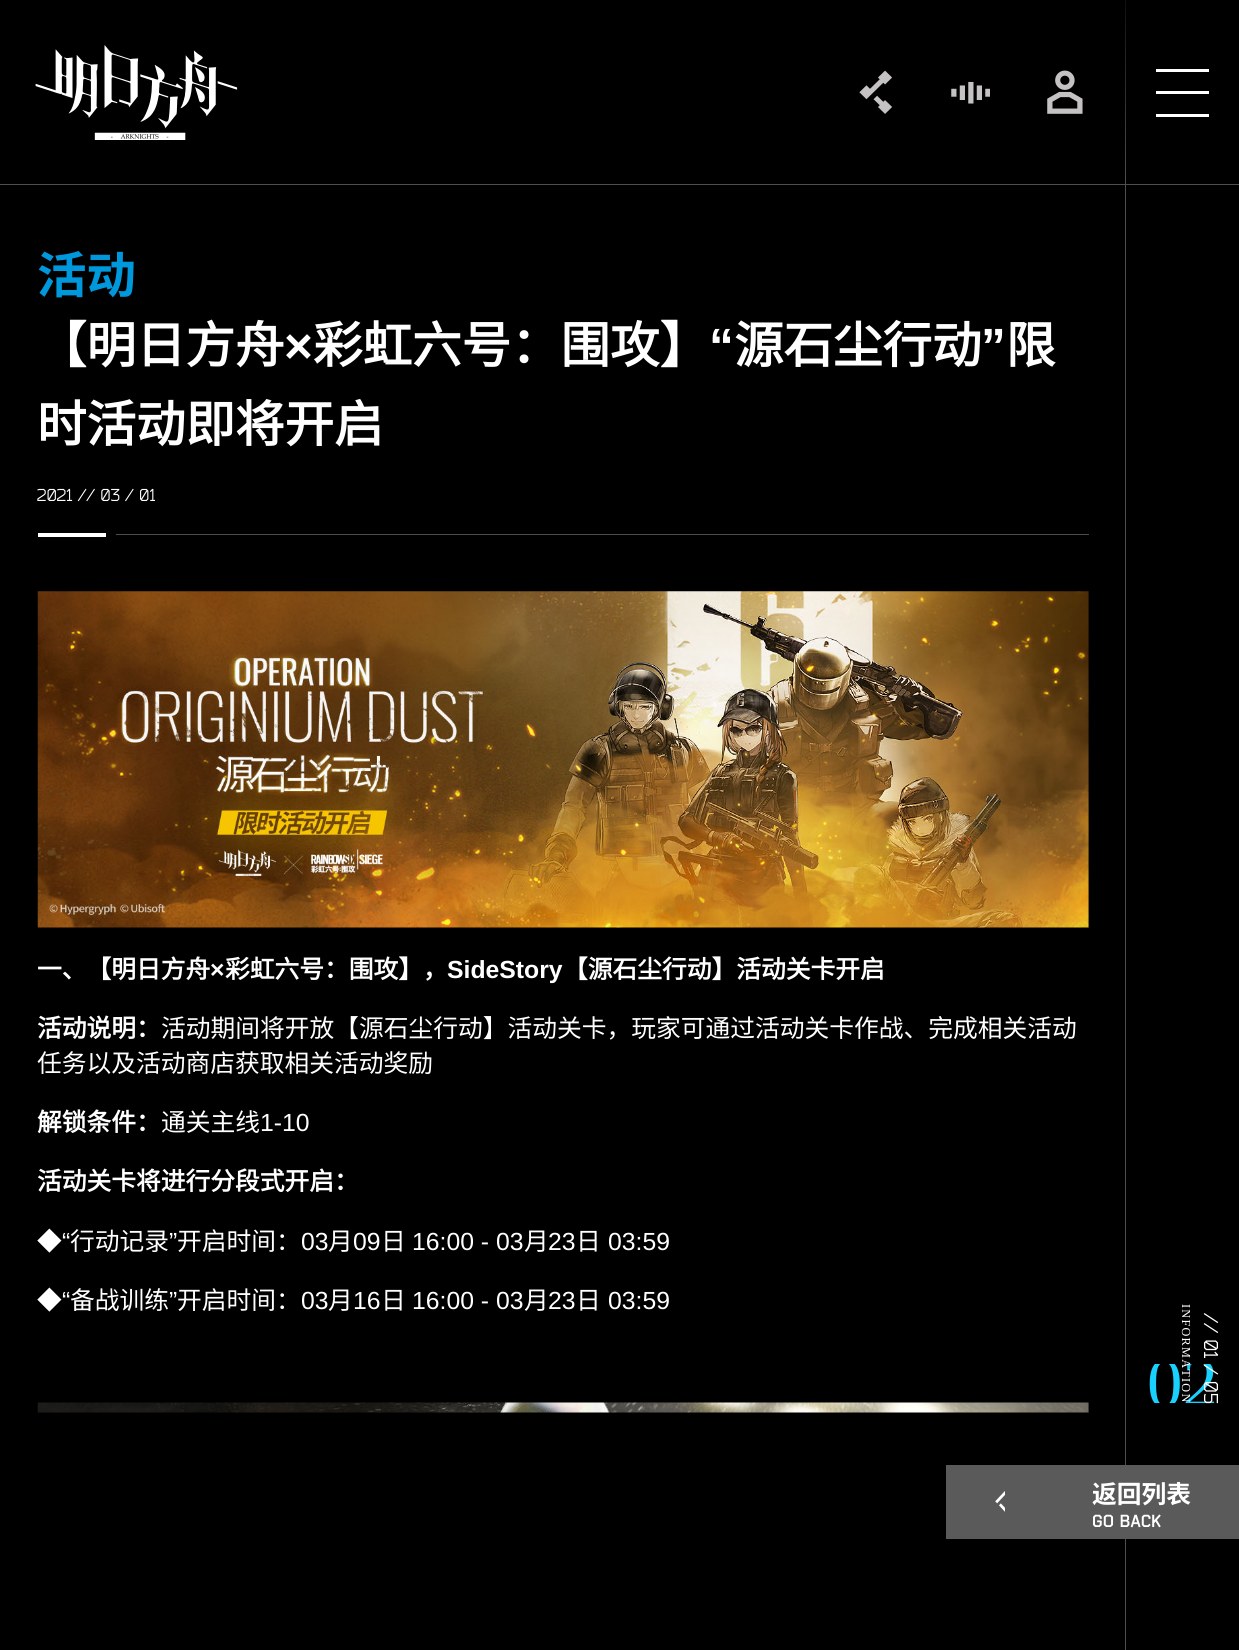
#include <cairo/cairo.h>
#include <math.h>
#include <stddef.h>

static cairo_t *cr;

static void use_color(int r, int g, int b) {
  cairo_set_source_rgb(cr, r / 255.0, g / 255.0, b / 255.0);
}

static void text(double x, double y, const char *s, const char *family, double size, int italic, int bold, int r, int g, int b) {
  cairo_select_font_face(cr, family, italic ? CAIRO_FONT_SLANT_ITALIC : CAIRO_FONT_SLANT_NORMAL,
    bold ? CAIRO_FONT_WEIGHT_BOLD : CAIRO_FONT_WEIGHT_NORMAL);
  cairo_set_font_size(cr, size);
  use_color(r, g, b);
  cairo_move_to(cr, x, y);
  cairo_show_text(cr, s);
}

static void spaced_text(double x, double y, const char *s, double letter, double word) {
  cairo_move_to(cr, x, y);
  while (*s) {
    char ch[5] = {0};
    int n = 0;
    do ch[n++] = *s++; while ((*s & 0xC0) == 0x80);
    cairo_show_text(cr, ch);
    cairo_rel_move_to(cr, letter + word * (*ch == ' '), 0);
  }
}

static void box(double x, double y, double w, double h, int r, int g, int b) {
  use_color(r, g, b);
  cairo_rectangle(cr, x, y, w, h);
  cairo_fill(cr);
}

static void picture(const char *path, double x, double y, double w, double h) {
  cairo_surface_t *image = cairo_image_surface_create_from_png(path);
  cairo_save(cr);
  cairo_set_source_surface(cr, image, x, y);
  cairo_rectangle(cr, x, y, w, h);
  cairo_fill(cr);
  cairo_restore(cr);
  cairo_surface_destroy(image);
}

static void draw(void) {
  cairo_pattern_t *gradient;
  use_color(0, 0, 0);
  cairo_paint(cr);
  picture("img_01.png", 35, 45, 203, 95);
  picture("img_02.png", 859, 70, 33, 44);
  picture("img_03.png", 951, 81, 39, 23);
  picture("img_04.png", 1047, 70, 36, 44);
  box(1125, 0, 1, 1650, 79, 79, 79);
  gradient = cairo_pattern_create_linear(620, 185, 620, 0);
  cairo_pattern_add_color_stop_rgba(gradient, 0, 0, 0, 0, 0);
  cairo_pattern_add_color_stop_rgba(gradient, 1, 0, 0, 0, 0.8);
  cairo_set_source(cr, gradient);
  cairo_pattern_destroy(gradient);
  cairo_rectangle(cr, 1125, 0, 1, 177);
  cairo_fill(cr);
  box(1156, 69, 53, 3, 255, 255, 255);
  box(1156, 91, 53, 3, 255, 255, 255);
  box(1156, 114, 53, 3, 255, 255, 255);
  box(0, 184, 1239, 1, 79, 79, 79);
  box(38, 533, 68, 4, 255, 255, 255);
  box(116, 534, 973, 1, 77, 77, 77);
  picture("img_05.png", 37, 591, 1052, 337);
  picture("img_06.png", 37, 1402, 1052, 11);
  box(946, 1465, 293, 74, 90, 90, 90);
  picture("img_07.png", 995, 1491, 10, 21);
  text(37, 293, "活动", "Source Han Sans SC", 49.5, 0, 1, 0, 152, 220);
  text(37, 363, "【明日方舟", "Noto Sans CJK SC", 49.5, 0, 1, 255, 255, 255);
  text(284, 363, "×", "Liberation Sans", 49.5, 0, 1, 255, 255, 255);
  text(313, 363, "彩虹六号：围攻】", "Noto Sans CJK SC", 49.5, 0, 1, 255, 255, 255);
  text(709, 363, "“", "Liberation Sans", 49.5, 0, 1, 255, 255, 255);
  text(734, 363, "源石尘行动", "Noto Sans CJK SC", 49.5, 0, 1, 255, 255, 255);
  text(981, 363, "”", "Liberation Sans", 49.5, 0, 1, 255, 255, 255);
  text(1006, 363, "限", "Noto Sans CJK SC", 49.5, 0, 1, 255, 255, 255);
  text(37, 442, "时活动即将开启", "Noto Sans CJK SC", 49.5, 0, 1, 255, 255, 255);
  text(37, 501, "2021 // 03 / 01", "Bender", 17.25, 0, 0, 255, 255, 255);
  text(37, 978, "一、【明日方舟", "Noto Sans CJK SC", 24.75, 0, 1, 255, 255, 255);
  text(210, 978, "×", "Liberation Sans", 24.75, 0, 1, 255, 255, 255);
  text(225, 978, "彩虹六号：围攻】，", "Noto Sans CJK SC", 24.75, 0, 1, 255, 255, 255);
  text(447, 978, "SideStory", "Liberation Sans", 24.75, 0, 1, 255, 255, 255);
  text(563, 978, "【源石尘行动】活动关卡开启", "Noto Sans CJK SC", 24.75, 0, 1, 255, 255, 255);
  text(37, 1037, "活动说明：", "Noto Sans CJK SC", 24.75, 0, 1, 255, 255, 255);
  text(161, 1037, "活动期间将开放【源石尘行动】活动关卡，玩家可通过活动关卡作战、完成相关活动", "Noto Sans CJK SC", 24.75, 0, 0, 255, 255, 255);
  text(37, 1072, "任务以及活动商店获取相关活动奖励", "Noto Sans CJK SC", 24.75, 0, 0, 255, 255, 255);
  text(37, 1131, "解锁条件：", "Noto Sans CJK SC", 24.75, 0, 1, 255, 255, 255);
  text(161, 1131, "通关主线", "Noto Sans CJK SC", 24.75, 0, 0, 255, 255, 255);
  text(260, 1131, "1-10", "Liberation Sans", 24.75, 0, 0, 255, 255, 255);
  text(37, 1190, "活动关卡将进行分段式开启：", "Noto Sans CJK SC", 24.75, 0, 1, 255, 255, 255);
  text(37, 1250, "◆", "Noto Sans CJK SC", 24.75, 0, 0, 255, 255, 255);
  text(62, 1250, "“", "Liberation Sans", 24.75, 0, 0, 255, 255, 255);
  text(70, 1250, "行动记录", "Noto Sans CJK SC", 24.75, 0, 0, 255, 255, 255);
  text(169, 1250, "”", "Liberation Sans", 24.75, 0, 0, 255, 255, 255);
  text(177, 1250, "开启时间：", "Noto Sans CJK SC", 24.75, 0, 0, 255, 255, 255);
  text(301, 1250, "03", "Liberation Sans", 24.75, 0, 0, 255, 255, 255);
  text(328, 1250, "月", "Noto Sans CJK SC", 24.75, 0, 0, 255, 255, 255);
  text(353, 1250, "09", "Liberation Sans", 24.75, 0, 0, 255, 255, 255);
  text(381, 1250, "日", "Noto Sans CJK SC", 24.75, 0, 0, 255, 255, 255);
  text(412, 1250, "16:00 - 03", "Liberation Sans", 24.75, 0, 0, 255, 255, 255);
  text(524, 1250, "月", "Noto Sans CJK SC", 24.75, 0, 0, 255, 255, 255);
  text(548, 1250, "23", "Liberation Sans", 24.75, 0, 0, 255, 255, 255);
  text(576, 1250, "日", "Noto Sans CJK SC", 24.75, 0, 0, 255, 255, 255);
  text(608, 1250, "03:59", "Liberation Sans", 24.75, 0, 0, 255, 255, 255);
  text(37, 1309, "◆", "Noto Sans CJK SC", 24.75, 0, 0, 255, 255, 255);
  text(62, 1309, "“", "Liberation Sans", 24.75, 0, 0, 255, 255, 255);
  text(70, 1309, "备战训练", "Noto Sans CJK SC", 24.75, 0, 0, 255, 255, 255);
  text(169, 1309, "”", "Liberation Sans", 24.75, 0, 0, 255, 255, 255);
  text(177, 1309, "开启时间：", "Noto Sans CJK SC", 24.75, 0, 0, 255, 255, 255);
  text(301, 1309, "03", "Liberation Sans", 24.75, 0, 0, 255, 255, 255);
  text(328, 1309, "月", "Noto Sans CJK SC", 24.75, 0, 0, 255, 255, 255);
  text(353, 1309, "16", "Liberation Sans", 24.75, 0, 0, 255, 255, 255);
  text(381, 1309, "日", "Noto Sans CJK SC", 24.75, 0, 0, 255, 255, 255);
  text(412, 1309, "16:00 - 03", "Liberation Sans", 24.75, 0, 0, 255, 255, 255);
  text(524, 1309, "月", "Noto Sans CJK SC", 24.75, 0, 0, 255, 255, 255);
  text(548, 1309, "23", "Liberation Sans", 24.75, 0, 0, 255, 255, 255);
  text(576, 1309, "日", "Noto Sans CJK SC", 24.75, 0, 0, 255, 255, 255);
  text(608, 1309, "03:59", "Liberation Sans", 24.75, 0, 0, 255, 255, 255);
  text(1092, 1503, "返回列表", "Source Han Sans SC", 24.75, 0, 1, 255, 255, 255);
  text(1092, 1527, "GO BACK", "Bender", 17.25, 0, 1, 255, 255, 255);
  cairo_save(cr);
  cairo_rectangle(cr, 1144, 1364, 79, 39);
  cairo_clip(cr);
  text(1147, 1407, "02", "Liberation Serif", 71, 0, 0, 24, 209, 255);
  cairo_restore(cr);
  cairo_select_font_face(cr, "Liberation Serif", CAIRO_FONT_SLANT_NORMAL, CAIRO_FONT_WEIGHT_NORMAL);
  cairo_set_font_size(cr, 12.25);
  cairo_save(cr);
  cairo_translate(cr, 1182, 1304);
  cairo_rotate(cr, 90 * M_PI / 180);
  spaced_text(0, 0, "INFORMATION", 1.25, 0);
  cairo_restore(cr);
  cairo_save(cr);
  cairo_translate(cr, 1204, 1313);
  cairo_rotate(cr, 90 * M_PI / 180);
  text(0, 0, "// 01 / 05", "Bender", 20, 0, 0, 255, 255, 255);
  cairo_restore(cr);
}

int main(void) {
  cairo_surface_t *surface = cairo_image_surface_create(CAIRO_FORMAT_RGB24, 1239, 1650);
  cr = cairo_create(surface);
  cairo_font_options_t *options = cairo_font_options_create();
  cairo_font_options_set_hint_metrics(options, CAIRO_HINT_METRICS_OFF);
  cairo_font_options_set_hint_style(options, CAIRO_HINT_STYLE_NONE);
  cairo_set_font_options(cr, options);
  cairo_set_miter_limit(cr, 4);
  draw();
  cairo_surface_write_to_png(surface, "out.png");
  cairo_font_options_destroy(options);
  cairo_destroy(cr);
  cairo_surface_destroy(surface);
  return 0;
}
